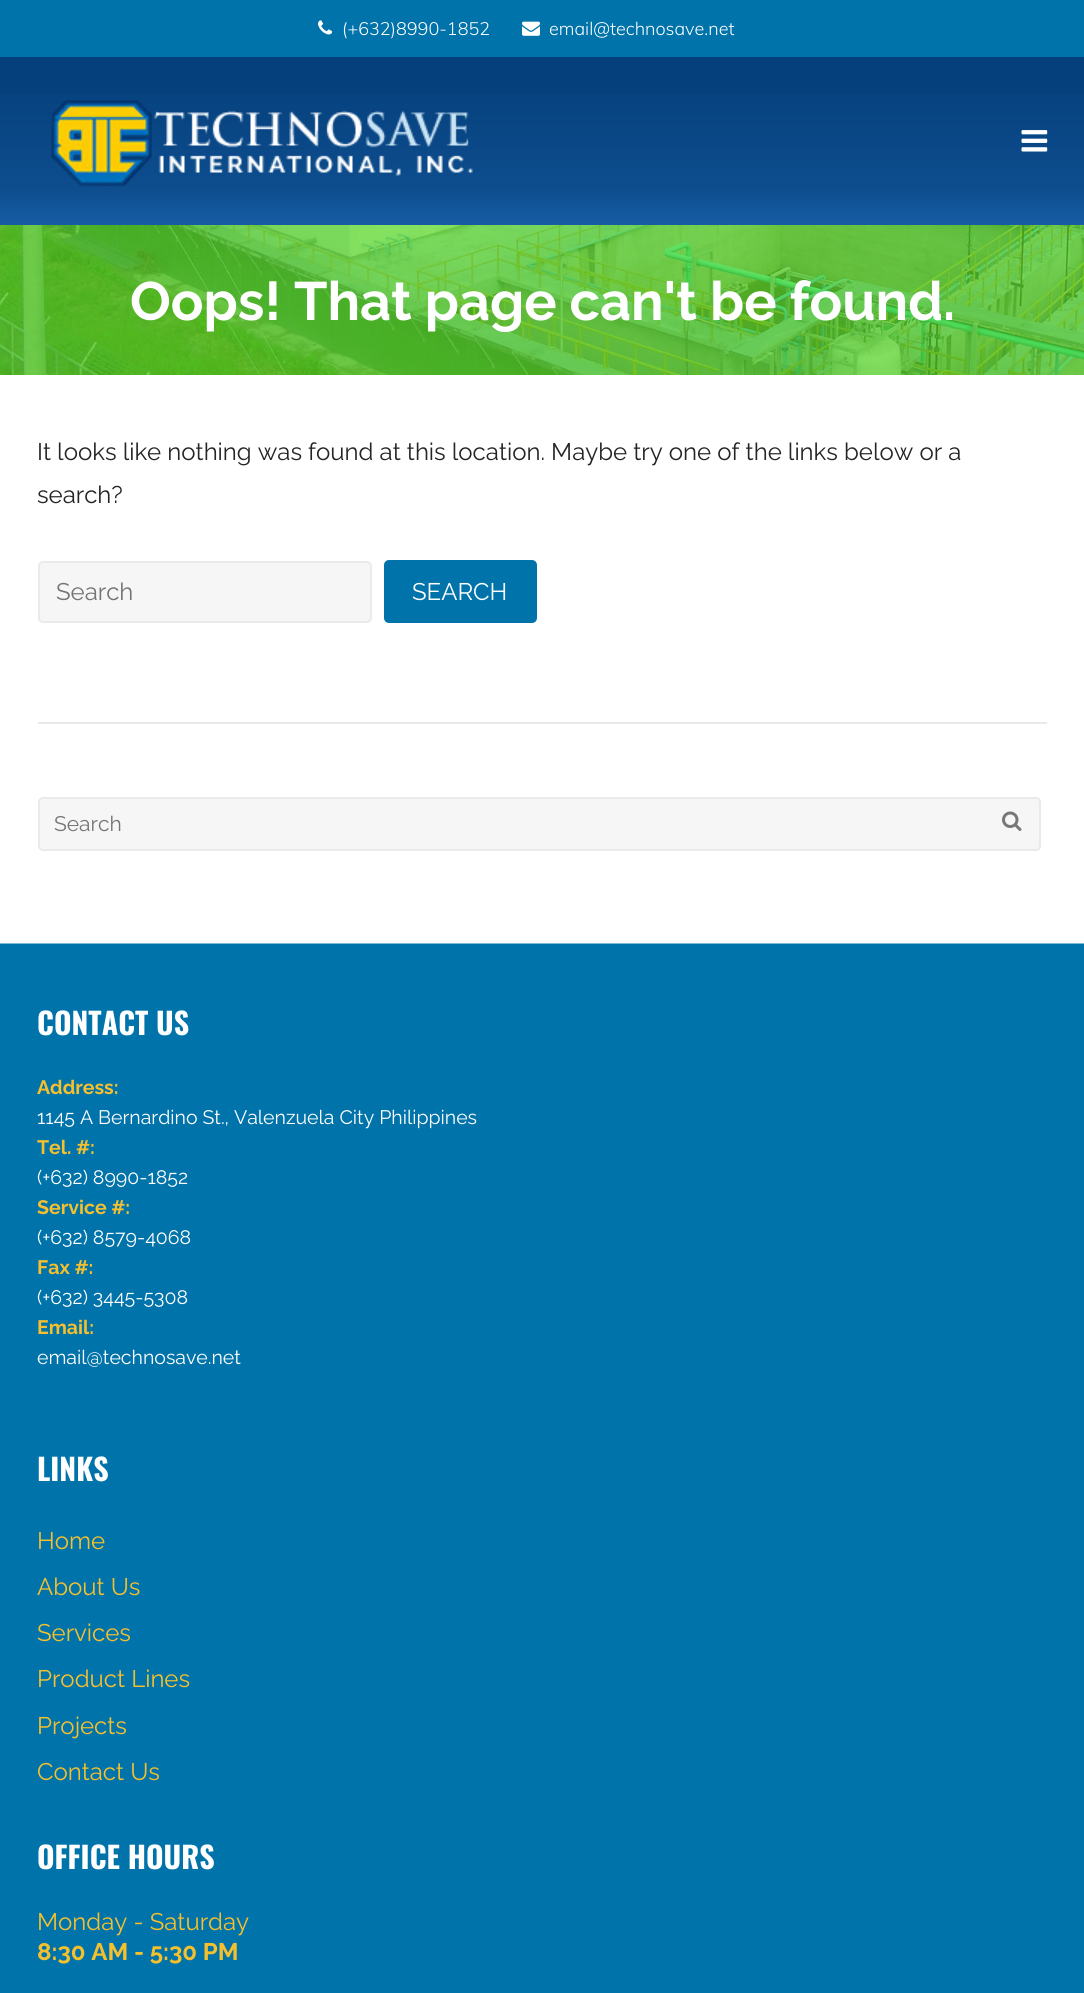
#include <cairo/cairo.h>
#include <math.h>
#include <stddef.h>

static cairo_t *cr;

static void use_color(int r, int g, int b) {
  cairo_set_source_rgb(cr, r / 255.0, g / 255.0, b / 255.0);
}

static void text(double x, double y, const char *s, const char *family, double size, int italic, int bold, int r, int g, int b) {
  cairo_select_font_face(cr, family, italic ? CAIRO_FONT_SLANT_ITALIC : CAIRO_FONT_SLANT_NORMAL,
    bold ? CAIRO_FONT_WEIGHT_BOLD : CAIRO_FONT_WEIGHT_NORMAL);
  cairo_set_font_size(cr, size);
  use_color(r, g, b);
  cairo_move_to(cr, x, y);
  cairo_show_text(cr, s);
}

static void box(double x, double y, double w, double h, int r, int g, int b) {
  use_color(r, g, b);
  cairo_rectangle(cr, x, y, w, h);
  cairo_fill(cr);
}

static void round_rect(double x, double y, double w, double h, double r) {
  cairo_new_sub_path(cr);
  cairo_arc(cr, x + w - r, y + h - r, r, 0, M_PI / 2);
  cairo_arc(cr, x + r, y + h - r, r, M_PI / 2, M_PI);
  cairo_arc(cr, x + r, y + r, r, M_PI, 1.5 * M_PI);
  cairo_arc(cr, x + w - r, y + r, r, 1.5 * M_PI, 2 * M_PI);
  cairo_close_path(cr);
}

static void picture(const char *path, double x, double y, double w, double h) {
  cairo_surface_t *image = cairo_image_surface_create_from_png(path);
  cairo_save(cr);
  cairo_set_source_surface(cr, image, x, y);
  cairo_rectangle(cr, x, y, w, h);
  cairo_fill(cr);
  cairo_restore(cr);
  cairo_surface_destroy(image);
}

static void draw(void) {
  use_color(255, 255, 255);
  cairo_paint(cr);
  box(0, 0, 1084, 57, 0, 115, 170);
  picture("img_01.png", 318, 20, 15, 15);
  picture("img_02.png", 522, 21, 18, 15);
  box(0, 57, 1084, 37, 5, 64, 124);
  picture("img_03.png", 0, 94, 1084, 131);
  picture("img_04.png", 51, 100, 422, 87);
  picture("img_05.png", 1021, 130, 27, 22);
  picture("img_06.png", 0, 225, 1084, 150);
  use_color(246, 246, 247);
  round_rect(39, 562, 332, 60, 4);
  cairo_fill_preserve(cr);
  use_color(234, 234, 235);
  cairo_stroke(cr);
  use_color(0, 115, 170);
  round_rect(384, 560, 153, 63, 5);
  cairo_fill(cr);
  box(38, 722, 1009, 2, 234, 234, 235);
  use_color(246, 246, 247);
  round_rect(39, 798, 1001, 52, 4);
  cairo_fill_preserve(cr);
  use_color(234, 234, 235);
  cairo_stroke(cr);
  picture("img_07.png", 1002, 811, 20, 20);
  box(0, 944, 1084, 1049, 0, 115, 170);
  box(0, 943, 1084, 1, 128, 185, 212);
  text(342, 35, "(+632)8990-1852", "Muli Light", 18, 0, 0, 255, 255, 255);
  text(549, 35, "email@technosave.net", "Muli Light", 18, 0, 0, 255, 255, 255);
  text(130, 320, "Oops! That page can't be found.", "Raleway", 54, 0, 1, 255, 255, 255);
  text(37, 460, "It looks like nothing was found at this location. Maybe try one of the links below or a", "Raleway", 24, 0, 0, 37, 37, 37);
  text(37, 503, "search?", "Raleway", 24, 0, 0, 37, 37, 37);
  text(56, 600, "Search", "Raleway", 24, 0, 0, 117, 117, 117);
  text(412, 600, "SEARCH", "Raleway", 24, 0, 0, 255, 255, 255);
  text(54, 831, "Search", "Raleway", 21, 0, 0, 117, 117, 117);
  text(37, 1035, "CONTACT US", "Oswald", 30, 0, 1, 255, 255, 255);
  text(37, 1094, "Address:", "Raleway", 19.5, 0, 1, 245, 192, 46);
  text(37, 1124, "1145 A Bernardino St., Valenzuela City Philippines", "Raleway", 19.5, 0, 0, 255, 255, 255);
  text(37, 1154, "Tel. #:", "Raleway", 19.5, 0, 1, 245, 192, 46);
  text(37, 1184, "(+632) 8990-1852", "Raleway", 19.5, 0, 0, 255, 255, 255);
  text(37, 1214, "Service #:", "Raleway", 19.5, 0, 1, 245, 192, 46);
  text(37, 1244, "(+632) 8579-4068", "Raleway", 19.5, 0, 0, 255, 255, 255);
  text(37, 1274, "Fax #:", "Raleway", 19.5, 0, 1, 245, 192, 46);
  text(37, 1304, "(+632) 3445-5308", "Raleway", 19.5, 0, 0, 255, 255, 255);
  text(37, 1334, "Email:", "Raleway", 19.5, 0, 1, 245, 192, 46);
  text(37, 1364, "email@technosave.net", "Raleway", 19.5, 0, 0, 255, 255, 255);
  text(37, 1481, "LINKS", "Oswald", 30, 0, 1, 255, 255, 255);
  text(37, 1549, "Home", "Raleway", 24, 0, 0, 245, 192, 46);
  text(37, 1595, "About Us", "Raleway", 24, 0, 0, 245, 192, 46);
  text(37, 1641, "Services", "Raleway", 24, 0, 0, 245, 192, 46);
  text(37, 1687, "Product Lines", "Raleway", 24, 0, 0, 245, 192, 46);
  text(37, 1734, "Projects", "Raleway", 24, 0, 0, 245, 192, 46);
  text(37, 1780, "Contact Us", "Raleway", 24, 0, 0, 245, 192, 46);
  text(37, 1869, "OFFICE HOURS", "Oswald", 30, 0, 1, 255, 255, 255);
  text(37, 1930, "Monday - Saturday", "Raleway", 24, 0, 0, 245, 192, 46);
  text(37, 1960, "8:30 AM - 5:30 PM", "Raleway", 24, 0, 1, 245, 192, 46);
}

int main(void) {
  cairo_surface_t *surface = cairo_image_surface_create(CAIRO_FORMAT_RGB24, 1084, 1993);
  cr = cairo_create(surface);
  cairo_font_options_t *options = cairo_font_options_create();
  cairo_font_options_set_hint_metrics(options, CAIRO_HINT_METRICS_OFF);
  cairo_font_options_set_hint_style(options, CAIRO_HINT_STYLE_NONE);
  cairo_set_font_options(cr, options);
  cairo_set_miter_limit(cr, 4);
  draw();
  cairo_surface_write_to_png(surface, "out.png");
  cairo_font_options_destroy(options);
  cairo_destroy(cr);
  cairo_surface_destroy(surface);
  return 0;
}
